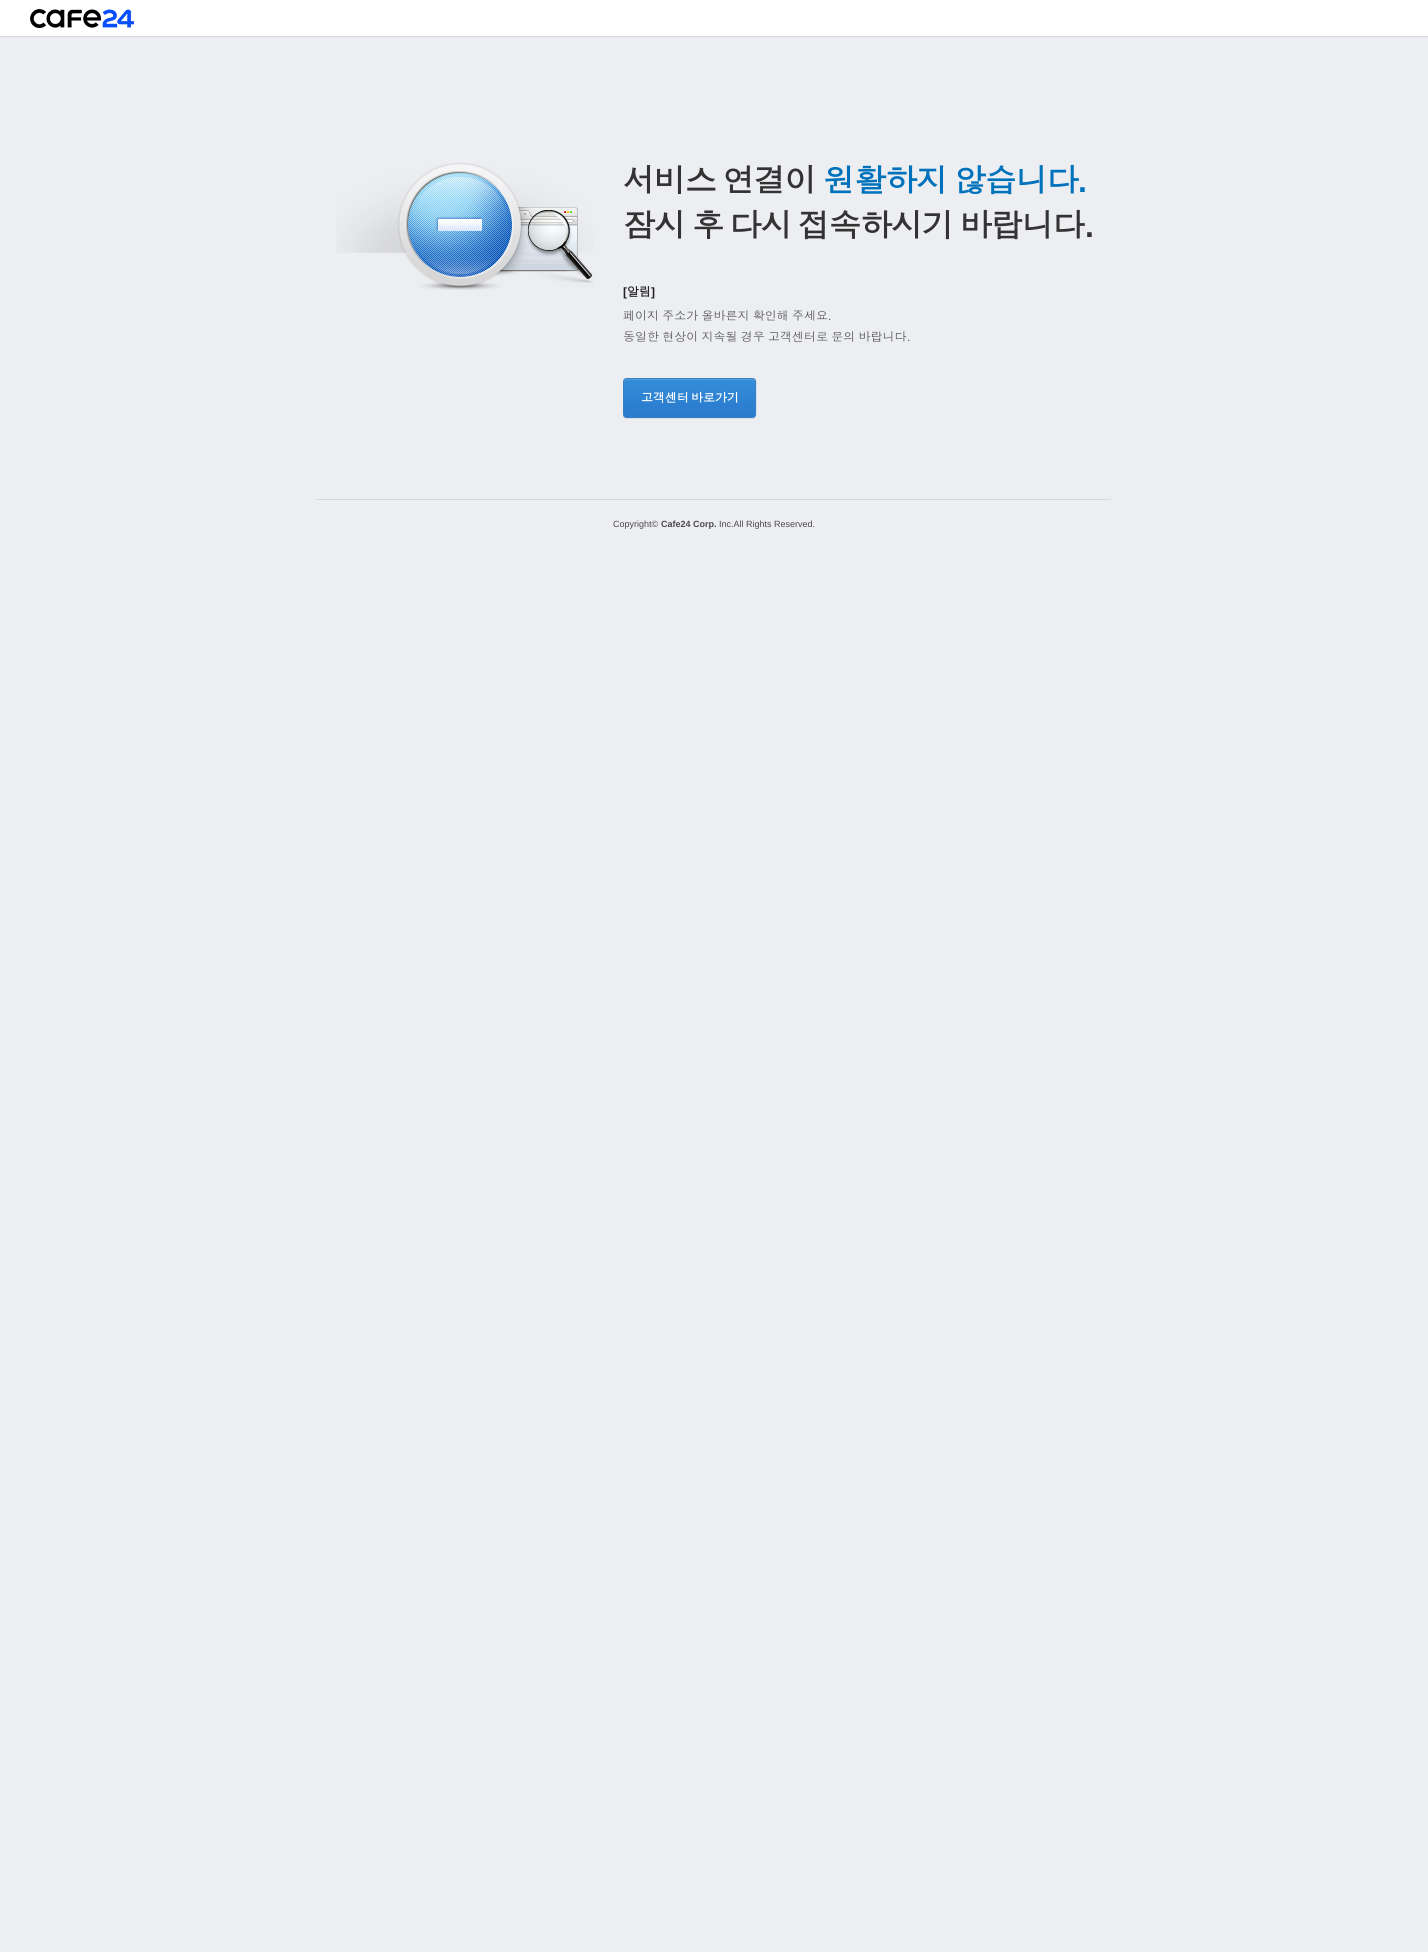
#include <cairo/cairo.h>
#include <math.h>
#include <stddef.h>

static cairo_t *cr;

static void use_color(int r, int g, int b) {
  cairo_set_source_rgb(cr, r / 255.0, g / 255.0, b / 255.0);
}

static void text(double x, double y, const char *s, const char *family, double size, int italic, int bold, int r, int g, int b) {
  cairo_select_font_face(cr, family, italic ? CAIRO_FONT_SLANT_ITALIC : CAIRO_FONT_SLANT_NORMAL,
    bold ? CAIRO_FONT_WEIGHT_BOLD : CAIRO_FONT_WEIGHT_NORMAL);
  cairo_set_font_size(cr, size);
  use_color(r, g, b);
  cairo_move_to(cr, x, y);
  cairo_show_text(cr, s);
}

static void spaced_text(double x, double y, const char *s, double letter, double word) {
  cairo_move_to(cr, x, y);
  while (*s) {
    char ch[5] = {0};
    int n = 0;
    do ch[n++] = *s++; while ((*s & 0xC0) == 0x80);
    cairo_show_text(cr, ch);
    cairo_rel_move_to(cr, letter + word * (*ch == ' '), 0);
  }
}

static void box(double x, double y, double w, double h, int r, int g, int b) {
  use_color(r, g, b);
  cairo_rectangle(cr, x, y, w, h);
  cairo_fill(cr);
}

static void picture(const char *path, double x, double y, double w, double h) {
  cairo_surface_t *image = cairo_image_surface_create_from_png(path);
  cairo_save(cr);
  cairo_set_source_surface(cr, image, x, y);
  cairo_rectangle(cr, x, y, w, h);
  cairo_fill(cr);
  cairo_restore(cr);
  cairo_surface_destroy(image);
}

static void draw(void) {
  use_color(237, 238, 242);
  cairo_paint(cr);
  box(0, 0, 1428, 36, 255, 255, 255);
  picture("img_01.png", 30, 9, 104, 19);
  picture("img_02.png", 0, 36, 1428, 2);
  picture("img_03.png", 336, 162, 258, 128);
  picture("img_04.png", 623, 378, 130, 41);
  picture("img_05.png", 753, 378, 4, 41);
  box(317, 499, 794, 1, 215, 215, 215);
  cairo_select_font_face(cr, "Dotum", CAIRO_FONT_SLANT_NORMAL, CAIRO_FONT_WEIGHT_BOLD);
  cairo_set_font_size(cr, 32);
  use_color(51, 51, 51);
  spaced_text(623, 192, "서비스 연결이", -1, -3);
  use_color(0, 114, 188);
  spaced_text(823, 192, "원활하지 않습니다", -1, -3);
  cairo_select_font_face(cr, "Liberation Sans", CAIRO_FONT_SLANT_NORMAL, CAIRO_FONT_WEIGHT_BOLD);
  spaced_text(1078, 192, ".", -1, 0);
  cairo_select_font_face(cr, "Dotum", CAIRO_FONT_SLANT_NORMAL, CAIRO_FONT_WEIGHT_BOLD);
  use_color(51, 51, 51);
  spaced_text(623, 237, "잠시 후 다시 접속하시기 바랍니다", -1, -3);
  cairo_select_font_face(cr, "Liberation Sans", CAIRO_FONT_SLANT_NORMAL, CAIRO_FONT_WEIGHT_BOLD);
  spaced_text(1085, 237, ".", -1, 0);
  text(623, 296, "[", "Liberation Sans", 12, 0, 1, 34, 34, 34);
  text(627, 296, "알림", "Dotum", 12, 0, 1, 34, 34, 34);
  text(651, 296, "]", "Liberation Sans", 12, 0, 1, 34, 34, 34);
  cairo_select_font_face(cr, "Dotum", CAIRO_FONT_SLANT_NORMAL, CAIRO_FONT_WEIGHT_NORMAL);
  use_color(85, 85, 85);
  spaced_text(623, 320, "페이지 주소가 올바른지 확인해 주세요", 0, -0.75);
  text(828, 320, ".", "Liberation Sans", 12, 0, 0, 85, 85, 85);
  cairo_select_font_face(cr, "Dotum", CAIRO_FONT_SLANT_NORMAL, CAIRO_FONT_WEIGHT_NORMAL);
  spaced_text(623, 341, "동일한 현상이 지속될 경우 고객센터로 문의 바랍니다", 0, -0.75);
  text(907, 341, ".", "Liberation Sans", 12, 0, 0, 85, 85, 85);
  cairo_select_font_face(cr, "Dotum", CAIRO_FONT_SLANT_NORMAL, CAIRO_FONT_WEIGHT_BOLD);
  use_color(255, 255, 255);
  spaced_text(641, 402, "고객센터 바로가기", 0, -2);
  text(613, 527, "Copyright©", "Liberation Sans", 9, 0, 0, 74, 73, 73);
  text(661, 527, "Cafe24 Corp.", "Liberation Sans", 9, 0, 1, 74, 73, 73);
  text(719, 527, "Inc.All Rights Reserved.", "Liberation Sans", 9, 0, 0, 74, 73, 73);
}

int main(void) {
  cairo_surface_t *surface = cairo_image_surface_create(CAIRO_FORMAT_RGB24, 1428, 1952);
  cr = cairo_create(surface);
  cairo_font_options_t *options = cairo_font_options_create();
  cairo_font_options_set_hint_metrics(options, CAIRO_HINT_METRICS_OFF);
  cairo_font_options_set_hint_style(options, CAIRO_HINT_STYLE_NONE);
  cairo_set_font_options(cr, options);
  cairo_set_miter_limit(cr, 4);
  draw();
  cairo_surface_write_to_png(surface, "out.png");
  cairo_font_options_destroy(options);
  cairo_destroy(cr);
  cairo_surface_destroy(surface);
  return 0;
}
